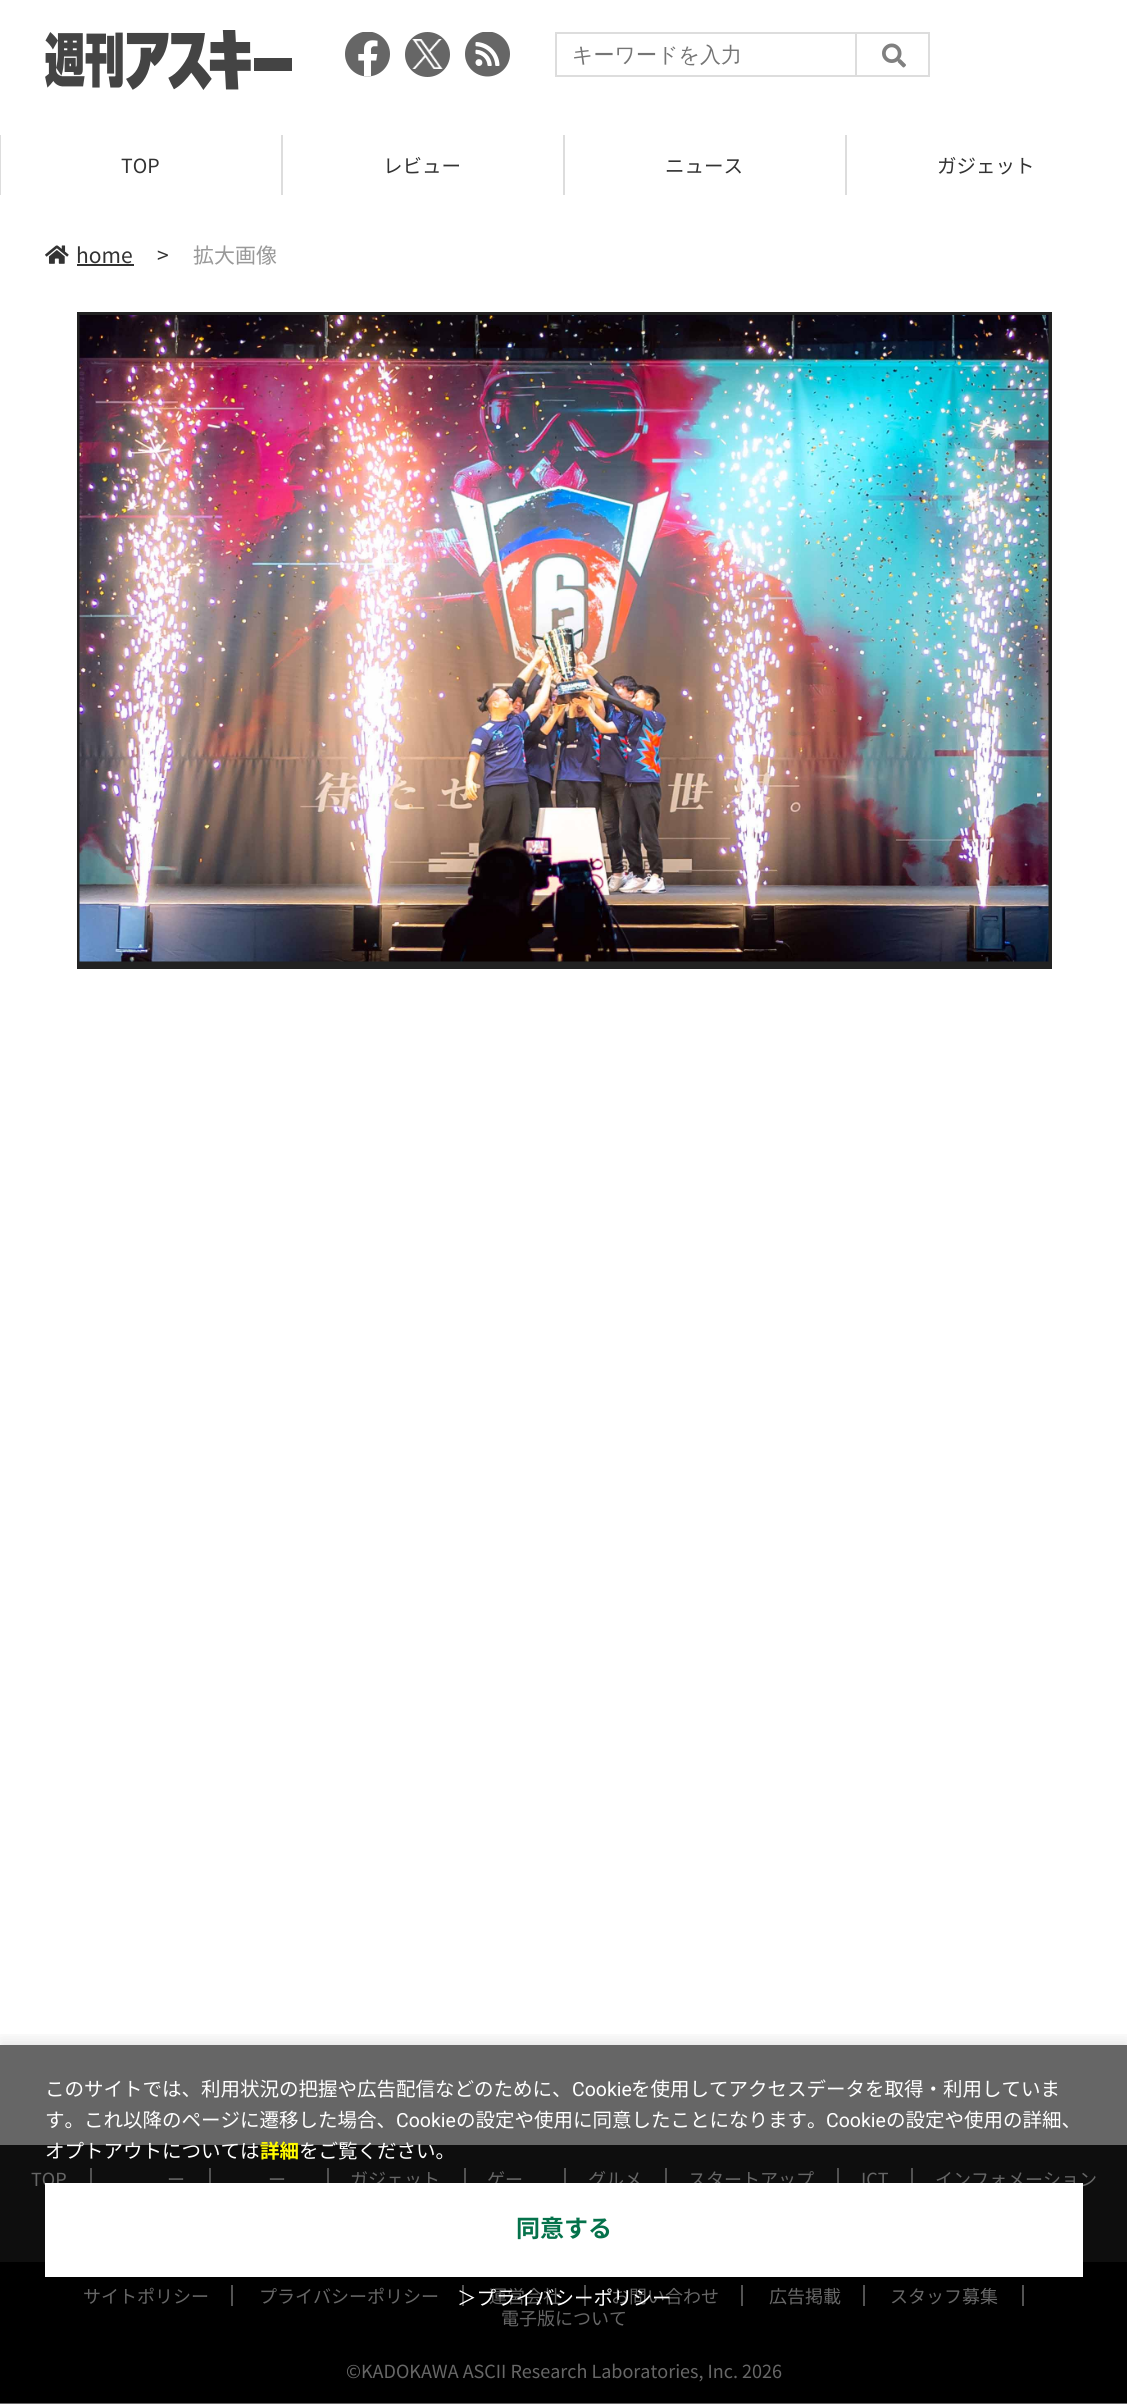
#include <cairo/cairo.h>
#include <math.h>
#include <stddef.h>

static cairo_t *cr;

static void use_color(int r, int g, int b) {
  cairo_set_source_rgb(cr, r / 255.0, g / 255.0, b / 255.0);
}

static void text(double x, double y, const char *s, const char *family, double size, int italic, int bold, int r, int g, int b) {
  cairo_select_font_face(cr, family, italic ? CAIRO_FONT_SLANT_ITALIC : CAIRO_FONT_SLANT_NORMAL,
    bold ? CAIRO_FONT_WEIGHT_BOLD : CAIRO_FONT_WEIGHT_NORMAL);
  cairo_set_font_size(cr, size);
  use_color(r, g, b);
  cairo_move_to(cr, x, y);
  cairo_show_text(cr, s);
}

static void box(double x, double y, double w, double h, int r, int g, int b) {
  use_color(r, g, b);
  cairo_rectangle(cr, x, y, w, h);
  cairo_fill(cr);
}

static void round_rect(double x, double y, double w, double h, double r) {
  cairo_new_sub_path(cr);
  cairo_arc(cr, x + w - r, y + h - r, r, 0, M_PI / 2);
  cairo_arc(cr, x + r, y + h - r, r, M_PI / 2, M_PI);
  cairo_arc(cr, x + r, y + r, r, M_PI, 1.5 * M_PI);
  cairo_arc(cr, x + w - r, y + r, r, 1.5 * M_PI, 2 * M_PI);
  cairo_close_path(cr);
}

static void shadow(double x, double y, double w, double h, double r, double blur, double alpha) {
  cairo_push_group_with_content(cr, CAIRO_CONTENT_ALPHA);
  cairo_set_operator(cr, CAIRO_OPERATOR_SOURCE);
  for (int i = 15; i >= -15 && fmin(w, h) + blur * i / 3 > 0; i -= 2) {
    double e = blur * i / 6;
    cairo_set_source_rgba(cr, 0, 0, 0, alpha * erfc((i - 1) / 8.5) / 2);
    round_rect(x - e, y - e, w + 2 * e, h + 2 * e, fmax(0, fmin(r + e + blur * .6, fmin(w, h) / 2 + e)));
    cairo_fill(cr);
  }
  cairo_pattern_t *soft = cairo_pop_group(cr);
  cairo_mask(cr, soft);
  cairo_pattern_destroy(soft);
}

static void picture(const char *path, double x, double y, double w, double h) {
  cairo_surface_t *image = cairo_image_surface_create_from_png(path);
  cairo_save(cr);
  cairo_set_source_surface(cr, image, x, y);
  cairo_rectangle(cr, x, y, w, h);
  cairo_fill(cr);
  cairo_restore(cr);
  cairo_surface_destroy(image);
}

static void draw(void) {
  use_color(255, 255, 255);
  cairo_paint(cr);
  box(0, 2045, 1127, 359, 102, 102, 102);
  picture("img_01.png", 45, 30, 247, 60);
  picture("img_02.png", 345, 32, 45, 45);
  cairo_arc(cr, 427.5, 54.5, 22.5, 0, 2 * M_PI);
  cairo_fill(cr);
  picture("img_03.png", 412, 39, 31, 30);
  picture("img_04.png", 465, 32, 45, 45);
  box(555, 32, 300, 2, 221, 221, 221);
  box(555, 75, 300, 2, 221, 221, 221);
  box(555, 32, 2, 45, 221, 221, 221);
  cairo_rectangle(cr, 856, 33, 73, 43);
  cairo_stroke(cr);
  picture("img_05.png", 882, 43, 24, 25);
  box(0, 135, 1, 60, 221, 221, 221);
  box(281, 135, 2, 60, 221, 221, 221);
  box(563, 135, 2, 60, 221, 221, 221);
  box(845, 135, 2, 60, 221, 221, 221);
  picture("img_06.png", 45, 245, 24, 19);
  box(77, 264, 57, 2, 51, 51, 51);
  box(77, 312, 975, 657, 34, 34, 34);
  picture("img_07.png", 79, 315, 970, 647);
  box(0, 2145, 1127, 117, 14, 14, 14);
  box(90, 2168, 2, 21, 82, 82, 82);
  box(209, 2168, 2, 21, 82, 82, 82);
  box(327, 2168, 2, 21, 82, 82, 82);
  box(464, 2168, 2, 21, 82, 82, 82);
  box(564, 2168, 2, 21, 82, 82, 82);
  box(665, 2168, 2, 21, 82, 82, 82);
  box(837, 2168, 2, 21, 82, 82, 82);
  box(911, 2168, 2, 21, 82, 82, 82);
  box(0, 2262, 1127, 141, 0, 0, 0);
  box(231, 2285, 2, 21, 82, 82, 82);
  box(462, 2285, 2, 21, 82, 82, 82);
  box(584, 2285, 2, 21, 82, 82, 82);
  box(741, 2285, 2, 21, 82, 82, 82);
  box(863, 2285, 2, 21, 82, 82, 82);
  box(1022, 2285, 2, 21, 82, 82, 82);
  cairo_save(cr);
  cairo_rectangle(cr, 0, 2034, 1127, 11);
  cairo_clip(cr);
  use_color(0, 0, 0);
  shadow(0, 2040, 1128, 360, 0, 7.5, 0.1);
  cairo_restore(cr);
  text(572, 62, "キーワードを入力", "WenQuanYi Zen Hei Medium", 21, 0, 0, 117, 117, 117);
  text(121, 173, "TOP", "Noto Sans JP Thin", 19.5, 0, 0, 51, 51, 51);
  text(383, 173, "レビュー", "Noto Sans JP Thin", 19.5, 0, 0, 51, 51, 51);
  text(665, 173, "ニュース", "Noto Sans JP Thin", 19.5, 0, 0, 51, 51, 51);
  text(937, 173, "ガジェット", "Noto Sans JP Thin", 19.5, 0, 0, 51, 51, 51);
  text(76, 263, "home", "Noto Sans JP Thin", 21, 0, 0, 51, 51, 51);
  text(157, 263, ">", "Noto Sans JP Thin", 21, 0, 0, 51, 51, 51);
  text(193, 263, "拡大画像", "Noto Sans JP Thin", 21, 0, 0, 153, 153, 153);
  text(45, 2096, "このサイトでは、利用状況の把握や広告配信などのために、", "Noto Sans JP Thin", 19.5, 0, 0, 255, 255, 255);
  text(572, 2096, "Cookie", "Roboto", 19.5, 0, 0, 255, 255, 255);
  text(631, 2096, "を使用してアクセスデータを取得・利用していま", "Noto Sans JP Thin", 19.5, 0, 0, 255, 255, 255);
  text(45, 2127, "す。これ以降のページに遷移した場合、", "Noto Sans JP Thin", 19.5, 0, 0, 255, 255, 255);
  text(396, 2127, "Cookie", "Roboto", 19.5, 0, 0, 255, 255, 255);
  text(456, 2127, "の設定や使用に同意したことになります。", "Noto Sans JP Thin", 19.5, 0, 0, 255, 255, 255);
  text(826, 2127, "Cookie", "Roboto", 19.5, 0, 0, 255, 255, 255);
  text(886, 2127, "の設定や使用の詳細、", "Noto Sans JP Thin", 19.5, 0, 0, 255, 255, 255);
  text(45, 2158, "オプトアウトについては", "Noto Sans JP Thin", 19.5, 0, 0, 255, 255, 255);
  text(260, 2158, "詳細", "Noto Sans JP", 19.5, 0, 1, 255, 250, 0);
  text(299, 2158, "をご覧ください。", "Noto Sans JP Thin", 19.5, 0, 0, 255, 255, 255);
  text(31, 2186, "TOP", "Noto Sans JP Thin", 18, 0, 0, 102, 102, 102);
  text(167, 2186, "ー", "Noto Sans JP Thin", 18, 0, 0, 102, 102, 102);
  text(268, 2186, "ー", "Noto Sans JP Thin", 18, 0, 0, 102, 102, 102);
  text(350, 2186, "ガジェット", "Noto Sans JP Thin", 18, 0, 0, 102, 102, 102);
  text(487, 2186, "ゲー", "Noto Sans JP Thin", 18, 0, 0, 102, 102, 102);
  text(588, 2186, "グルメ", "Noto Sans JP Thin", 18, 0, 0, 102, 102, 102);
  text(688, 2186, "スタートアップ", "Noto Sans JP Thin", 18, 0, 0, 102, 102, 102);
  text(861, 2186, "ICT", "Noto Sans JP Thin", 18, 0, 0, 102, 102, 102);
  text(935, 2186, "インフォメーション", "Noto Sans JP Thin", 18, 0, 0, 102, 102, 102);
  box(45, 2183, 1038, 94, 255, 255, 255);
  text(516, 2237, "同意する", "Noto Sans JP", 24, 0, 1, 5, 114, 75);
  text(83, 2303, "サイトポリシー", "Noto Sans JP Thin", 18, 0, 0, 102, 102, 102);
  text(259, 2303, "プライバシーポリシー", "Noto Sans JP Thin", 18, 0, 0, 102, 102, 102);
  text(489, 2303, "運営会社", "Noto Sans JP Thin", 18, 0, 0, 102, 102, 102);
  text(611, 2303, "お問い合わせ", "Noto Sans JP Thin", 18, 0, 0, 102, 102, 102);
  text(457, 2305, "＞プライバシーポリシー", "Noto Sans JP Thin", 19.5, 0, 0, 255, 255, 255);
  text(769, 2303, "広告掲載", "Noto Sans JP Thin", 18, 0, 0, 102, 102, 102);
  text(890, 2303, "スタッフ募集", "Noto Sans JP Thin", 18, 0, 0, 102, 102, 102);
  text(501, 2325, "電子版について", "Noto Sans JP Thin", 18, 0, 0, 102, 102, 102);
  text(346, 2378, "©KADOKAWA ASCII Research Laboratories, Inc. 2026", "Noto Sans JP Thin", 18, 0, 0, 102, 102, 102);
}

int main(void) {
  cairo_surface_t *surface = cairo_image_surface_create(CAIRO_FORMAT_RGB24, 1127, 2404);
  cr = cairo_create(surface);
  cairo_font_options_t *options = cairo_font_options_create();
  cairo_font_options_set_hint_metrics(options, CAIRO_HINT_METRICS_OFF);
  cairo_font_options_set_hint_style(options, CAIRO_HINT_STYLE_NONE);
  cairo_set_font_options(cr, options);
  cairo_set_miter_limit(cr, 4);
  draw();
  cairo_surface_write_to_png(surface, "out.png");
  cairo_font_options_destroy(options);
  cairo_destroy(cr);
  cairo_surface_destroy(surface);
  return 0;
}
